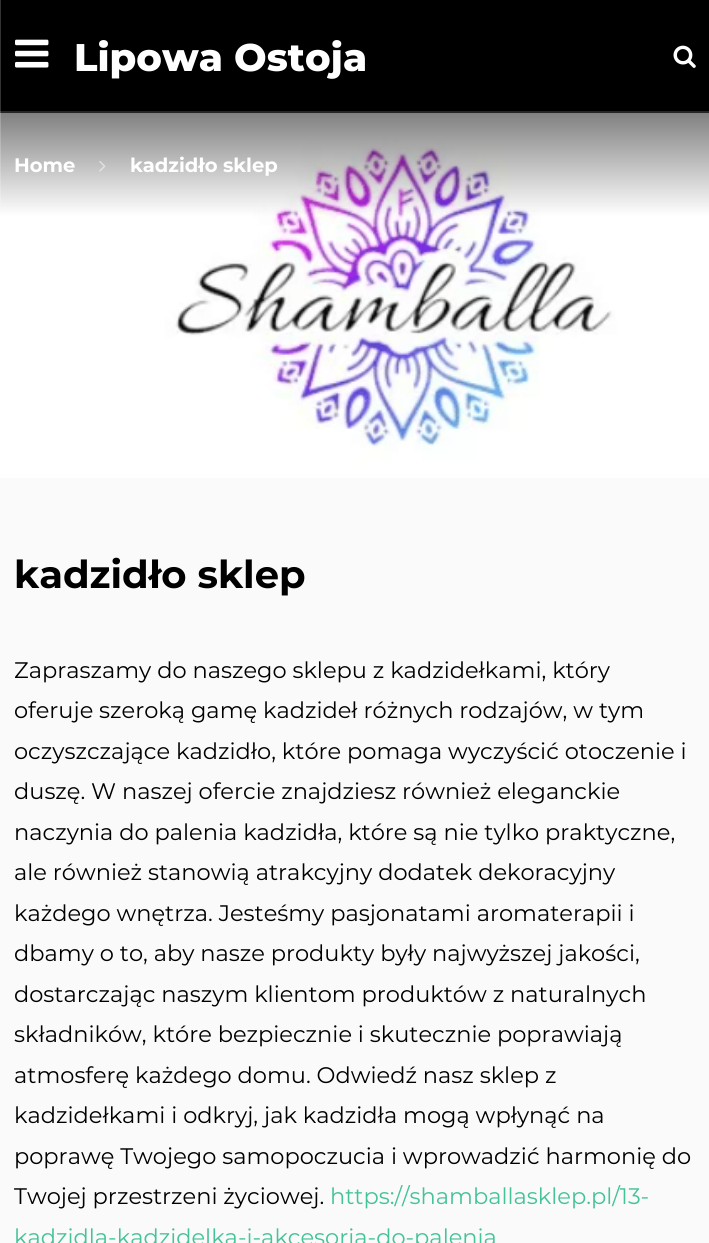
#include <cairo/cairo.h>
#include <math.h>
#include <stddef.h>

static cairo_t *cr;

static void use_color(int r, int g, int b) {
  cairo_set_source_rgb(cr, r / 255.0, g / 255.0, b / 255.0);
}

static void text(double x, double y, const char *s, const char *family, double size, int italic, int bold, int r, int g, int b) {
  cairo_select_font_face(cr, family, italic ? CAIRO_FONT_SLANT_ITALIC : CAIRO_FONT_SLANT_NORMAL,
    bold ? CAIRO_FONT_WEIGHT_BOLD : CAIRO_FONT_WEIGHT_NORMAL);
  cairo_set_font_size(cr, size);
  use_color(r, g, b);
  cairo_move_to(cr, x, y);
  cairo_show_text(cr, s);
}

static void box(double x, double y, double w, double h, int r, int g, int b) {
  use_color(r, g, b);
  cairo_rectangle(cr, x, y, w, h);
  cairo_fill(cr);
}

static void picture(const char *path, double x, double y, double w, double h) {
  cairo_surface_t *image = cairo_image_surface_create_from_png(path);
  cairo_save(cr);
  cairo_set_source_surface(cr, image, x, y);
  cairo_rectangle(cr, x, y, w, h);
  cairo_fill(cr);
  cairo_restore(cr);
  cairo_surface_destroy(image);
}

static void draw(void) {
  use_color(250, 250, 250);
  cairo_paint(cr);
  box(0, 0, 709, 111, 0, 0, 0);
  box(0, 111, 709, 2, 38, 38, 38);
  picture("img_03.png", 0, 113, 709, 365);
  cairo_set_source_rgba(cr, 1, 1, 1, 0.2);
  cairo_rectangle(cr, 0, 0, 1, 205);
  cairo_fill(cr);
  picture("img_01.png", 15, 39, 34, 29);
  picture("img_02.png", 673, 45, 23, 23);
  picture("img_04.png", 99, 161, 7, 11);
  text(74, 71, "Lipowa Ostoja", "Montserrat ExtraBold", 38.5, 0, 0, 255, 255, 255);
  text(14, 172, "Home", "Montserrat", 19.5, 0, 1, 255, 255, 255);
  text(130, 172, "kadzidło sklep", "Montserrat", 19.5, 0, 1, 255, 255, 255);
  text(14, 588, "kadzidło sklep", "Montserrat", 38.5, 0, 1, 0, 0, 0);
  text(14, 678, "Zapraszamy do naszego sklepu z kadzidełkami, który", "Montserrat", 22.5, 0, 0, 0, 0, 0);
  text(14, 718, "oferuje szeroką gamę kadzideł różnych rodzajów, w tym", "Montserrat", 22.5, 0, 0, 0, 0, 0);
  text(14, 759, "oczyszczające kadzidło, które pomaga wyczyścić otoczenie i", "Montserrat", 22.5, 0, 0, 0, 0, 0);
  text(14, 799, "duszę. W naszej ofercie znajdziesz również eleganckie", "Montserrat", 22.5, 0, 0, 0, 0, 0);
  text(14, 840, "naczynia do palenia kadzidła, które są nie tylko praktyczne,", "Montserrat", 22.5, 0, 0, 0, 0, 0);
  text(14, 880, "ale również stanowią atrakcyjny dodatek dekoracyjny", "Montserrat", 22.5, 0, 0, 0, 0, 0);
  text(14, 921, "każdego wnętrza. Jesteśmy pasjonatami aromaterapii i", "Montserrat", 22.5, 0, 0, 0, 0, 0);
  text(14, 961, "dbamy o to, aby nasze produkty były najwyższej jakości,", "Montserrat", 22.5, 0, 0, 0, 0, 0);
  text(14, 1002, "dostarczając naszym klientom produktów z naturalnych", "Montserrat", 22.5, 0, 0, 0, 0, 0);
  text(14, 1042, "składników, które bezpiecznie i skutecznie poprawiają", "Montserrat", 22.5, 0, 0, 0, 0, 0);
  text(14, 1083, "atmosferę każdego domu. Odwiedź nasz sklep z", "Montserrat", 22.5, 0, 0, 0, 0, 0);
  text(14, 1123, "kadzidełkami i odkryj, jak kadzidła mogą wpłynąć na", "Montserrat", 22.5, 0, 0, 0, 0, 0);
  text(14, 1164, "poprawę Twojego samopoczucia i wprowadzić harmonię do", "Montserrat", 22.5, 0, 0, 0, 0, 0);
  text(14, 1204, "Twojej przestrzeni życiowej.", "Montserrat", 22.5, 0, 0, 0, 0, 0);
  text(330, 1204, "https://shamballasklep.pl/13-", "Montserrat", 22.5, 0, 0, 68, 194, 153);
  text(14, 1245, "kadzidla-kadzidelka-i-akcesoria-do-palenia", "Montserrat", 22.5, 0, 0, 68, 194, 153);
}

int main(void) {
  cairo_surface_t *surface = cairo_image_surface_create(CAIRO_FORMAT_RGB24, 709, 1243);
  cr = cairo_create(surface);
  cairo_font_options_t *options = cairo_font_options_create();
  cairo_font_options_set_hint_metrics(options, CAIRO_HINT_METRICS_OFF);
  cairo_font_options_set_hint_style(options, CAIRO_HINT_STYLE_NONE);
  cairo_set_font_options(cr, options);
  cairo_set_miter_limit(cr, 4);
  draw();
  cairo_surface_write_to_png(surface, "out.png");
  cairo_font_options_destroy(options);
  cairo_destroy(cr);
  cairo_surface_destroy(surface);
  return 0;
}
